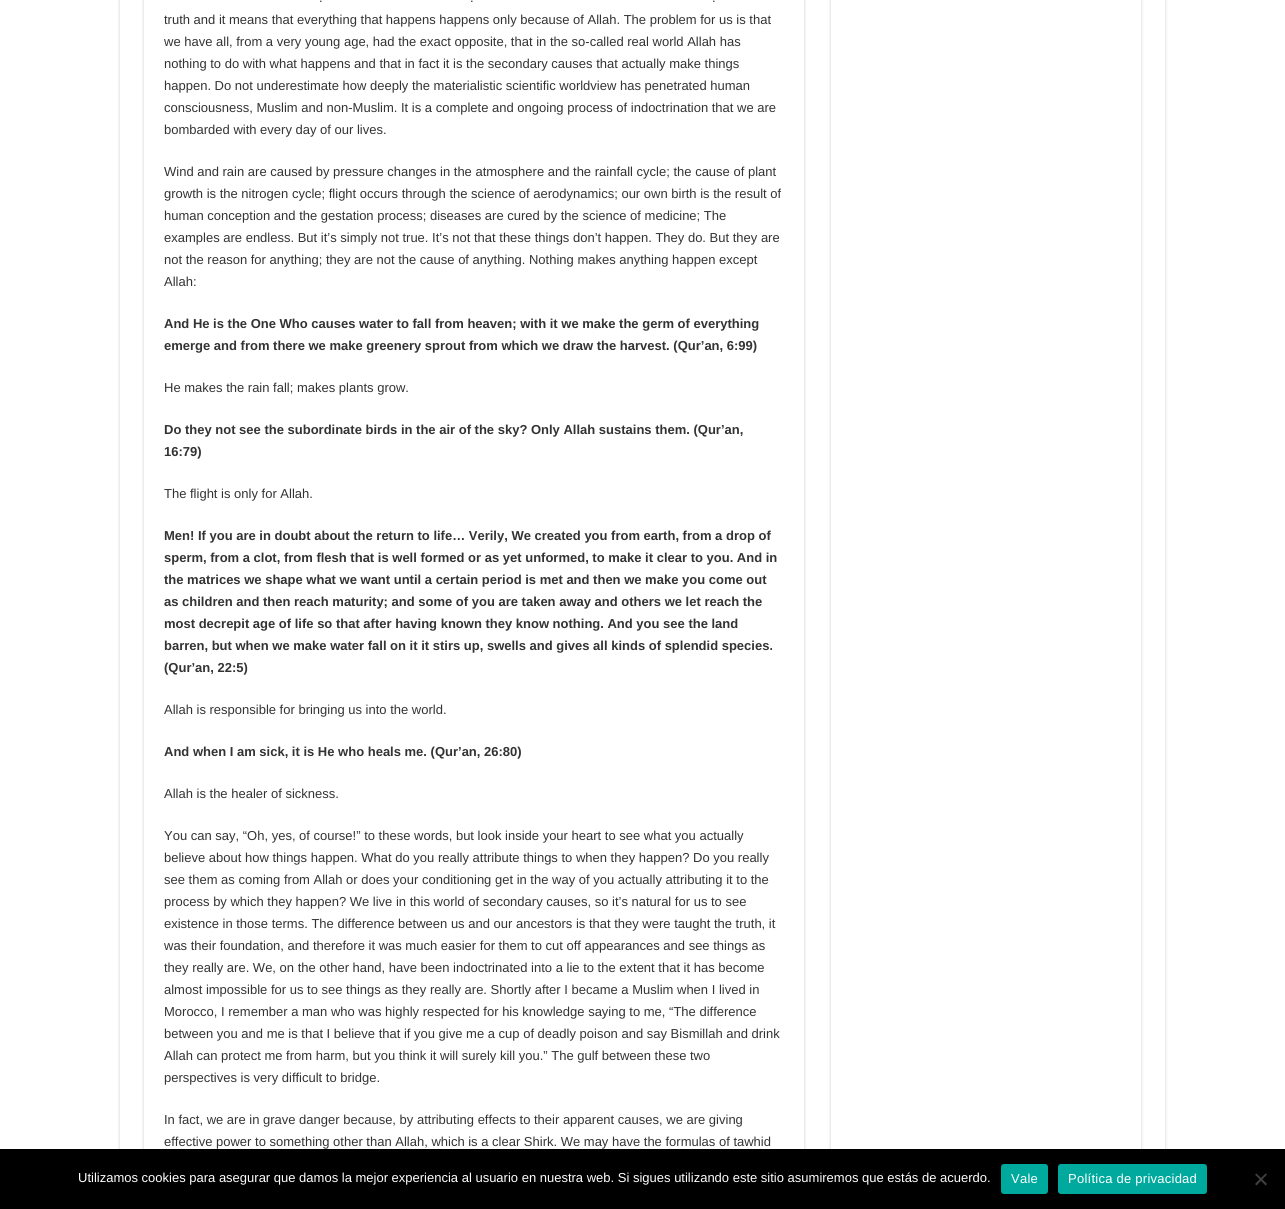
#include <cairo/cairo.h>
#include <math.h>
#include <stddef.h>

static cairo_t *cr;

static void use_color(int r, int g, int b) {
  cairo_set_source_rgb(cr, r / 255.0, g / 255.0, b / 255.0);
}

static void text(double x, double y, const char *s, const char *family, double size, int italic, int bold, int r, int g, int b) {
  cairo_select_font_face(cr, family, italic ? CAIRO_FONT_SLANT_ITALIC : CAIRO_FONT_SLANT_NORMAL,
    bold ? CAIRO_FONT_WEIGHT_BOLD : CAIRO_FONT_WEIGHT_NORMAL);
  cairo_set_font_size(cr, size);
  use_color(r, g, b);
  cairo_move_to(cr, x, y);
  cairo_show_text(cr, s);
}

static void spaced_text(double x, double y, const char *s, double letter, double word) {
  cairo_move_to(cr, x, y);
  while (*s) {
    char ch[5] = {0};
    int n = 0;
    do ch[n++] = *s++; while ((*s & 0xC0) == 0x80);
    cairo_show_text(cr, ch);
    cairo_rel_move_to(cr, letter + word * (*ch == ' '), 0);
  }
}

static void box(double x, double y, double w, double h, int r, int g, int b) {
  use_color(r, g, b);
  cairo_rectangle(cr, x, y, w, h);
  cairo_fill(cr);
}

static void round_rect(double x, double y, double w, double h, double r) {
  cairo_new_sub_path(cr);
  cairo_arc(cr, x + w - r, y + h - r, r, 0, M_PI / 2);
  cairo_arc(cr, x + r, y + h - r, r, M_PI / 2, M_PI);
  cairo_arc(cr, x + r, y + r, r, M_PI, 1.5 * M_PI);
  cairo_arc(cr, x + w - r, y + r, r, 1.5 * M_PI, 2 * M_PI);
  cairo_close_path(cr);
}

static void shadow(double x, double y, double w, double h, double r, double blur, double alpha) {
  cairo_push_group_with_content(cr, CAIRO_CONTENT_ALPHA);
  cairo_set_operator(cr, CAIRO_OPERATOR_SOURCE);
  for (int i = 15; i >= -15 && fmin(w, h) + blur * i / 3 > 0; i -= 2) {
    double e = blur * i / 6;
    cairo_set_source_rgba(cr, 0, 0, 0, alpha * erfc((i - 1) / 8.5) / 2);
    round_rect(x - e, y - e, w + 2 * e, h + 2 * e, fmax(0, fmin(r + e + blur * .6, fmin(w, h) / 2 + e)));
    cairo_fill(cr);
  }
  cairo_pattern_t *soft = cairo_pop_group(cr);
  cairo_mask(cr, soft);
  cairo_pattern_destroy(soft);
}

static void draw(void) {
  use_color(255, 255, 255);
  cairo_paint(cr);
  cairo_save(cr);
  cairo_set_fill_rule(cr, CAIRO_FILL_RULE_EVEN_ODD);
  cairo_new_path(cr);
  cairo_move_to(cr, 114, 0);
  cairo_line_to(cr, 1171, 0);
  cairo_line_to(cr, 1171, 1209);
  cairo_line_to(cr, 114, 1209);
  cairo_close_path(cr);
  cairo_move_to(cr, 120, -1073);
  cairo_line_to(cr, 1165, -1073);
  cairo_line_to(cr, 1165, 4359);
  cairo_line_to(cr, 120, 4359);
  cairo_close_path(cr);
  cairo_clip(cr);
  use_color(202, 202, 202);
  shadow(120, -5, 1045, 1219, 0, 1.5, 1);
  cairo_restore(cr);
  cairo_save(cr);
  cairo_set_fill_rule(cr, CAIRO_FILL_RULE_EVEN_ODD);
  cairo_new_path(cr);
  cairo_move_to(cr, 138, 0);
  cairo_line_to(cr, 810, 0);
  cairo_line_to(cr, 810, 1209);
  cairo_line_to(cr, 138, 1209);
  cairo_close_path(cr);
  cairo_move_to(cr, 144, -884);
  cairo_line_to(cr, 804, -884);
  cairo_line_to(cr, 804, 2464);
  cairo_line_to(cr, 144, 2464);
  cairo_close_path(cr);
  cairo_clip(cr);
  use_color(202, 202, 202);
  shadow(144, -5, 660, 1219, 0, 1.5, 1);
  cairo_restore(cr);
  cairo_save(cr);
  cairo_set_fill_rule(cr, CAIRO_FILL_RULE_EVEN_ODD);
  cairo_new_path(cr);
  cairo_move_to(cr, 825, 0);
  cairo_line_to(cr, 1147, 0);
  cairo_line_to(cr, 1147, 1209);
  cairo_line_to(cr, 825, 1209);
  cairo_close_path(cr);
  cairo_move_to(cr, 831, -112);
  cairo_line_to(cr, 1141, -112);
  cairo_line_to(cr, 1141, 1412);
  cairo_line_to(cr, 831, 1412);
  cairo_close_path(cr);
  cairo_clip(cr);
  use_color(202, 202, 202);
  shadow(831, -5, 310, 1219, 0, 1.5, 1);
  cairo_restore(cr);
  box(0, 1149, 1285, 60, 0, 0, 0);
  use_color(0, 169, 157);
  round_rect(1001, 1164, 47, 30, 3);
  cairo_fill(cr);
  round_rect(1058, 1164, 149, 30, 3);
  cairo_fill(cr);
  use_color(64, 64, 64);
  cairo_new_path(cr);
  cairo_move_to(cr, 1265.5, 1173.5);
  cairo_line_to(cr, 1267, 1174.5);
  cairo_line_to(cr, 1256.5, 1185.5);
  cairo_line_to(cr, 1255, 1184);
  cairo_close_path(cr);
  cairo_fill(cr);
  cairo_new_path(cr);
  cairo_move_to(cr, 1255, 1174.5);
  cairo_line_to(cr, 1256.5, 1173.5);
  cairo_line_to(cr, 1267, 1184);
  cairo_line_to(cr, 1265.5, 1185.5);
  cairo_close_path(cr);
  cairo_fill(cr);
  text(319, 2, ".", "Liberation Sans", 13, 0, 0, 51, 51, 51);
  text(470, 2, ".", "Liberation Sans", 13, 0, 0, 51, 51, 51);
  text(712, 2, ".", "Liberation Sans", 13, 0, 0, 51, 51, 51);
  text(164, 24, "truth and it means that everything that happens happens only because of Allah. The problem for us is that", "Liberation Sans", 13, 0, 0, 51, 51, 51);
  text(164, 46, "we have all, from a very young age, had the exact opposite, that in the so-called real world Allah has", "Liberation Sans", 13, 0, 0, 51, 51, 51);
  text(164, 68, "nothing to do with what happens and that in fact it is the secondary causes that actually make things", "Liberation Sans", 13, 0, 0, 51, 51, 51);
  text(164, 90, "happen. Do not underestimate how deeply the materialistic scientific worldview has penetrated human", "Liberation Sans", 13, 0, 0, 51, 51, 51);
  text(164, 112, "consciousness, Muslim and non-Muslim. It is a complete and ongoing process of indoctrination that we are", "Liberation Sans", 13, 0, 0, 51, 51, 51);
  text(164, 134, "bombarded with every day of our lives.", "Liberation Sans", 13, 0, 0, 51, 51, 51);
  text(164, 176, "Wind and rain are caused by pressure changes in the atmosphere and the rainfall cycle; the cause of plant", "Liberation Sans", 13, 0, 0, 51, 51, 51);
  text(164, 198, "growth is the nitrogen cycle; flight occurs through the science of aerodynamics; our own birth is the result of", "Liberation Sans", 13, 0, 0, 51, 51, 51);
  text(164, 220, "human conception and the gestation process; diseases are cured by the science of medicine; The", "Liberation Sans", 13, 0, 0, 51, 51, 51);
  text(164, 242, "examples are endless. But it’s simply not true. It’s not that these things don’t happen. They do. But they are", "Liberation Sans", 13, 0, 0, 51, 51, 51);
  text(164, 264, "not the reason for anything; they are not the cause of anything. Nothing makes anything happen except", "Liberation Sans", 13, 0, 0, 51, 51, 51);
  text(164, 286, "Allah:", "Liberation Sans", 13, 0, 0, 51, 51, 51);
  text(164, 328, "And He is the One Who causes water to fall from heaven; with it we make the germ of everything", "Liberation Sans", 13, 0, 1, 51, 51, 51);
  text(164, 350, "emerge and from there we make greenery sprout from which we draw the harvest. (Qur’an, 6:99)", "Liberation Sans", 13, 0, 1, 51, 51, 51);
  text(164, 392, "He makes the rain fall; makes plants grow.", "Liberation Sans", 13, 0, 0, 51, 51, 51);
  text(164, 434, "Do they not see the subordinate birds in the air of the sky? Only Allah sustains them. (Qur’an,", "Liberation Sans", 13, 0, 1, 51, 51, 51);
  text(164, 456, "16:79)", "Liberation Sans", 13, 0, 1, 51, 51, 51);
  text(164, 498, "The flight is only for Allah.", "Liberation Sans", 13, 0, 0, 51, 51, 51);
  text(164, 540, "Men! If you are in doubt about the return to life… Verily, We created you from earth, from a drop of", "Liberation Sans", 13, 0, 1, 51, 51, 51);
  text(164, 562, "sperm, from a clot, from flesh that is well formed or as yet unformed, to make it clear to you. And in", "Liberation Sans", 13, 0, 1, 51, 51, 51);
  text(164, 584, "the matrices we shape what we want until a certain period is met and then we make you come out", "Liberation Sans", 13, 0, 1, 51, 51, 51);
  text(164, 606, "as children and then reach maturity; and some of you are taken away and others we let reach the", "Liberation Sans", 13, 0, 1, 51, 51, 51);
  text(164, 628, "most decrepit age of life so that after having known they know nothing. And you see the land", "Liberation Sans", 13, 0, 1, 51, 51, 51);
  text(164, 650, "barren, but when we make water fall on it it stirs up, swells and gives all kinds of splendid species.", "Liberation Sans", 13, 0, 1, 51, 51, 51);
  text(164, 672, "(Qur’an, 22:5)", "Liberation Sans", 13, 0, 1, 51, 51, 51);
  text(164, 714, "Allah is responsible for bringing us into the world.", "Liberation Sans", 13, 0, 0, 51, 51, 51);
  text(164, 756, "And when I am sick, it is He who heals me. (Qur’an, 26:80)", "Liberation Sans", 13, 0, 1, 51, 51, 51);
  text(164, 798, "Allah is the healer of sickness.", "Liberation Sans", 13, 0, 0, 51, 51, 51);
  text(164, 840, "You can say, “Oh, yes, of course!” to these words, but look inside your heart to see what you actually", "Liberation Sans", 13, 0, 0, 51, 51, 51);
  text(164, 862, "believe about how things happen. What do you really attribute things to when they happen? Do you really", "Liberation Sans", 13, 0, 0, 51, 51, 51);
  text(164, 884, "see them as coming from Allah or does your conditioning get in the way of you actually attributing it to the", "Liberation Sans", 13, 0, 0, 51, 51, 51);
  text(164, 906, "process by which they happen? We live in this world of secondary causes, so it’s natural for us to see", "Liberation Sans", 13, 0, 0, 51, 51, 51);
  text(164, 928, "existence in those terms. The difference between us and our ancestors is that they were taught the truth, it", "Liberation Sans", 13, 0, 0, 51, 51, 51);
  text(164, 950, "was their foundation, and therefore it was much easier for them to cut off appearances and see things as", "Liberation Sans", 13, 0, 0, 51, 51, 51);
  text(164, 972, "they really are. We, on the other hand, have been indoctrinated into a lie to the extent that it has become", "Liberation Sans", 13, 0, 0, 51, 51, 51);
  text(164, 994, "almost impossible for us to see things as they really are. Shortly after I became a Muslim when I lived in", "Liberation Sans", 13, 0, 0, 51, 51, 51);
  text(164, 1016, "Morocco, I remember a man who was highly respected for his knowledge saying to me, “The difference", "Liberation Sans", 13, 0, 0, 51, 51, 51);
  text(164, 1038, "between you and me is that I believe that if you give me a cup of deadly poison and say Bismillah and drink", "Liberation Sans", 13, 0, 0, 51, 51, 51);
  text(164, 1060, "Allah can protect me from harm, but you think it will surely kill you.” The gulf between these two", "Liberation Sans", 13, 0, 0, 51, 51, 51);
  text(164, 1082, "perspectives is very difficult to bridge.", "Liberation Sans", 13, 0, 0, 51, 51, 51);
  text(164, 1124, "In fact, we are in grave danger because, by attributing effects to their apparent causes, we are giving", "Liberation Sans", 13, 0, 0, 51, 51, 51);
  text(164, 1146, "effective power to something other than Allah, which is a clear Shirk. We may have the formulas of tawhid", "Liberation Sans", 13, 0, 0, 51, 51, 51);
  text(78, 1182, "Utilizamos cookies para asegurar que damos la mejor experiencia al usuario en nuestra web. Si sigues utilizando este sitio asumiremos que estás de acuerdo.", "Liberation Sans", 13, 0, 0, 255, 255, 255);
  spaced_text(1011, 1183, "Vale", 0.25, 0);
  spaced_text(1068, 1183, "Política de privacidad", 0.25, 0);
}

int main(void) {
  cairo_surface_t *surface = cairo_image_surface_create(CAIRO_FORMAT_RGB24, 1285, 1209);
  cr = cairo_create(surface);
  cairo_font_options_t *options = cairo_font_options_create();
  cairo_font_options_set_hint_metrics(options, CAIRO_HINT_METRICS_OFF);
  cairo_font_options_set_hint_style(options, CAIRO_HINT_STYLE_NONE);
  cairo_set_font_options(cr, options);
  cairo_set_miter_limit(cr, 4);
  draw();
  cairo_surface_write_to_png(surface, "out.png");
  cairo_font_options_destroy(options);
  cairo_destroy(cr);
  cairo_surface_destroy(surface);
  return 0;
}
